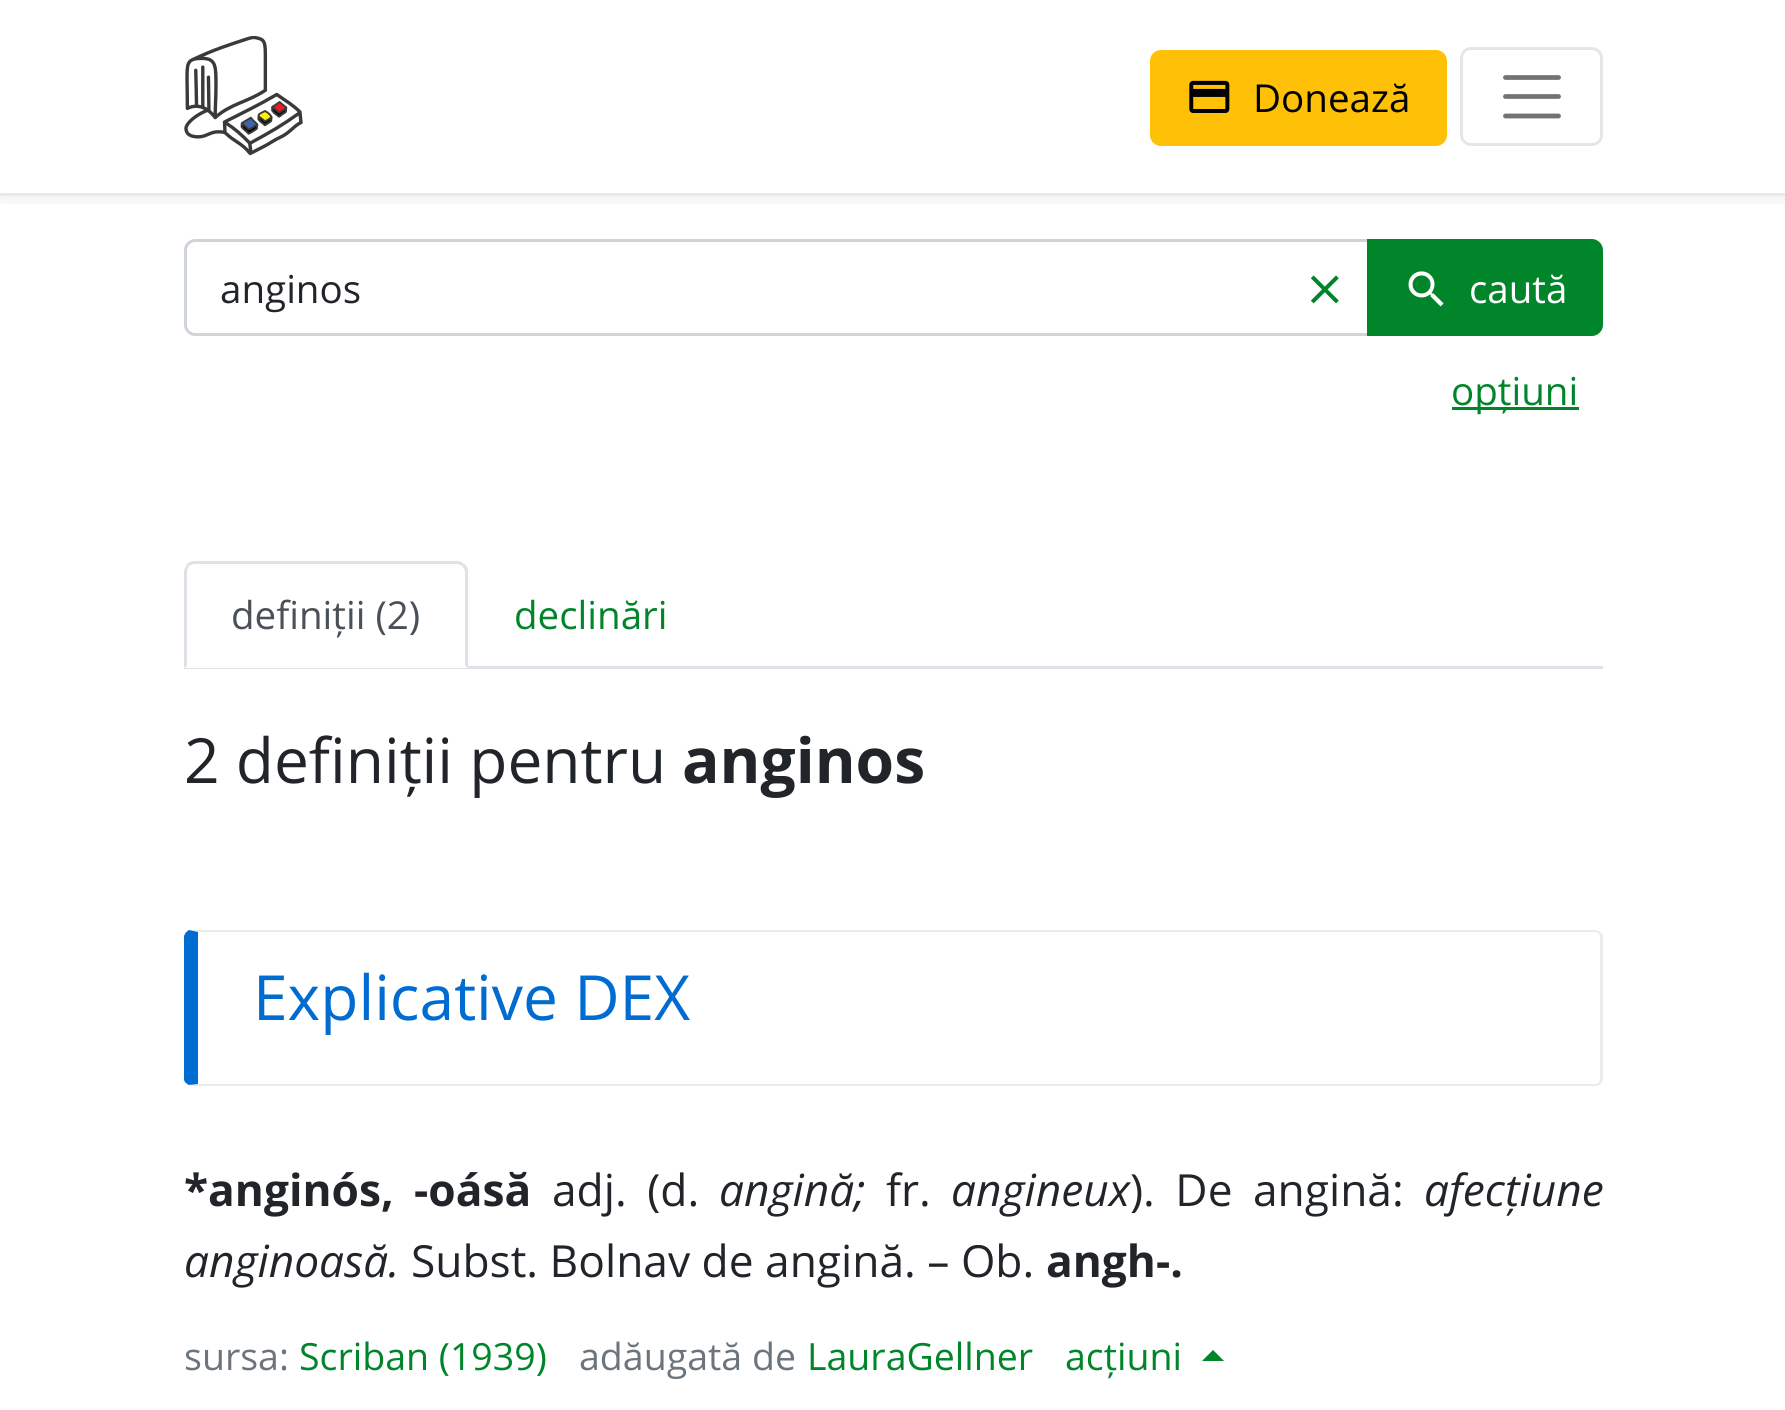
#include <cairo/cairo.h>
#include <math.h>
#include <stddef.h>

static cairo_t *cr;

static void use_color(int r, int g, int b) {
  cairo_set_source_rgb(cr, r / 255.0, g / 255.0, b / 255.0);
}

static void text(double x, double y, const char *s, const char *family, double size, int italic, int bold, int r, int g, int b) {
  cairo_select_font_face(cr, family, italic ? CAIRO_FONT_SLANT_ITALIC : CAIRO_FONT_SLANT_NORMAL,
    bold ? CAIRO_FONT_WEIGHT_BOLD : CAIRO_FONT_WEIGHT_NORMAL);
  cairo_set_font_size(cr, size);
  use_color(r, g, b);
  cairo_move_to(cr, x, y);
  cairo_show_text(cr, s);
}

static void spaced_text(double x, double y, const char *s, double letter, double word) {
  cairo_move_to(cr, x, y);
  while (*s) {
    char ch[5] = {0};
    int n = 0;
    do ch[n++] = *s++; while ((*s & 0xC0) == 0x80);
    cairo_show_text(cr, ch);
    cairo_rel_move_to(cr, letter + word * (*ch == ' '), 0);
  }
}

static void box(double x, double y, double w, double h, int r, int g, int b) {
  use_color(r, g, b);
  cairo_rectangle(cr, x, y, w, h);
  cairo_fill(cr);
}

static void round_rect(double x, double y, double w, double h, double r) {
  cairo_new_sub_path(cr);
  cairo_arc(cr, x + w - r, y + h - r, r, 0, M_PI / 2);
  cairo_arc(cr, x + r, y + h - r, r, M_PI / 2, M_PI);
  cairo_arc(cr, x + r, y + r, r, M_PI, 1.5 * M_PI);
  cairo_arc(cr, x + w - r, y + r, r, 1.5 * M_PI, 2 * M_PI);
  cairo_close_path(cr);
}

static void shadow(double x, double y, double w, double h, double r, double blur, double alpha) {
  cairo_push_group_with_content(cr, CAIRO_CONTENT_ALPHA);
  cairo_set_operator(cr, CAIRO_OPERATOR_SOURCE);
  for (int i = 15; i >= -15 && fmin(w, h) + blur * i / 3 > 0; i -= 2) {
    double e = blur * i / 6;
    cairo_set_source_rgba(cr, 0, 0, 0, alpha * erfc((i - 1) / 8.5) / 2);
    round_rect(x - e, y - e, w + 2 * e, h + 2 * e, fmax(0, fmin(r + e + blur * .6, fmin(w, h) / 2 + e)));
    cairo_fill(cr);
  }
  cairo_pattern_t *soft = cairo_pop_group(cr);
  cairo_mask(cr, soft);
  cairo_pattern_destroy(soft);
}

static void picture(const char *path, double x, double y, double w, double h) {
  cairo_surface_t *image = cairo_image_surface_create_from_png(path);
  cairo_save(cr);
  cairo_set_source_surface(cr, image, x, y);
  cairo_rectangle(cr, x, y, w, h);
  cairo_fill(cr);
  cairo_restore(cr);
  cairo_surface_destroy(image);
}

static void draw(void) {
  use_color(255, 255, 255);
  cairo_paint(cr);
  cairo_save(cr);
  cairo_rectangle(cr, 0, 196, 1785, 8);
  cairo_clip(cr);
  use_color(0, 0, 0);
  shadow(0, 0, 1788, 195, 0, 11, 0.1);
  cairo_restore(cr);
  box(0, 193, 1785, 3, 232, 232, 232);
  picture("img_01.png", 184, 36, 119, 120);
  use_color(255, 193, 7);
  round_rect(1151.5, 51.5, 294, 93, 9.5);
  cairo_fill_preserve(cr);
  cairo_set_line_width(cr, 3);
  cairo_stroke(cr);
  picture("img_02.png", 1189, 80, 41, 33);
  round_rect(1461.5, 48.5, 140, 96, 9.5);
  use_color(230, 230, 230);
  cairo_stroke(cr);
  cairo_new_path(cr);
  cairo_move_to(cr, 1505.5, 77.5);
  cairo_line_to(cr, 1558.5, 77.5);
  cairo_move_to(cr, 1505.5, 96.5);
  cairo_line_to(cr, 1558.5, 96.5);
  cairo_move_to(cr, 1505.5, 116);
  cairo_line_to(cr, 1558.5, 116);
  use_color(115, 115, 115);
  cairo_set_line_width(cr, 4.8);
  cairo_set_line_cap(cr, CAIRO_LINE_CAP_ROUND);
  cairo_stroke(cr);
  cairo_new_path(cr);
  cairo_move_to(cr, 195, 240.5);
  cairo_line_to(cr, 1373.5, 240.5);
  cairo_line_to(cr, 1373.5, 334.5);
  cairo_line_to(cr, 195, 334.5);
  cairo_curve_to(cr, 190, 334.5, 185.5, 330, 185.5, 325);
  cairo_line_to(cr, 185.5, 250);
  cairo_curve_to(cr, 185.5, 245, 190, 240.5, 195, 240.5);
  cairo_close_path(cr);
  use_color(206, 212, 218);
  cairo_set_line_width(cr, 3);
  cairo_set_line_cap(cr, CAIRO_LINE_CAP_BUTT);
  cairo_stroke(cr);
  picture("img_03.png", 1310, 275, 29, 29);
  use_color(0, 133, 42);
  cairo_new_path(cr);
  cairo_move_to(cr, 1368.5, 240.5);
  cairo_line_to(cr, 1592, 240.5);
  cairo_curve_to(cr, 1597, 240.5, 1601.5, 245, 1601.5, 250);
  cairo_line_to(cr, 1601.5, 325);
  cairo_curve_to(cr, 1601.5, 330, 1597, 334.5, 1592, 334.5);
  cairo_line_to(cr, 1368.5, 334.5);
  cairo_close_path(cr);
  cairo_fill_preserve(cr);
  cairo_stroke(cr);
  picture("img_04.png", 1408, 271, 36, 36);
  box(1452, 407, 127, 3, 0, 133, 42);
  box(184, 666, 1419, 3, 222, 226, 230);
  use_color(255, 255, 255);
  cairo_new_path(cr);
  cairo_move_to(cr, 195, 561);
  cairo_line_to(cr, 457, 561);
  cairo_curve_to(cr, 463, 561, 468, 566, 468, 572);
  cairo_line_to(cr, 468, 668);
  cairo_line_to(cr, 184, 668);
  cairo_line_to(cr, 184, 572);
  cairo_curve_to(cr, 184, 566, 189, 561, 195, 561);
  cairo_close_path(cr);
  cairo_fill(cr);
  use_color(222, 226, 230);
  cairo_new_path(cr);
  cairo_move_to(cr, 195, 561);
  cairo_curve_to(cr, 192, 561, 189, 562, 187, 564);
  cairo_line_to(cr, 189, 566);
  cairo_curve_to(cr, 191, 565, 193, 564, 195, 564);
  cairo_line_to(cr, 456, 564);
  cairo_curve_to(cr, 458, 564, 461, 565, 462, 566);
  cairo_line_to(cr, 464, 564);
  cairo_curve_to(cr, 462, 562, 459, 561, 456, 561);
  cairo_close_path(cr);
  cairo_fill(cr);
  cairo_new_path(cr);
  cairo_move_to(cr, 468, 668);
  cairo_line_to(cr, 465, 666);
  cairo_line_to(cr, 465, 572);
  cairo_curve_to(cr, 465, 570, 464, 568, 462, 566);
  cairo_line_to(cr, 464, 564);
  cairo_curve_to(cr, 466, 565, 467, 567, 468, 569);
  cairo_close_path(cr);
  cairo_fill(cr);
  use_color(255, 255, 255);
  cairo_new_path(cr);
  cairo_move_to(cr, 467, 668);
  cairo_line_to(cr, 184, 668);
  cairo_line_to(cr, 187, 666);
  cairo_line_to(cr, 465, 666);
  cairo_close_path(cr);
  cairo_fill(cr);
  use_color(222, 226, 230);
  cairo_new_path(cr);
  cairo_move_to(cr, 184, 570);
  cairo_curve_to(cr, 185, 568, 186, 566, 187, 564);
  cairo_line_to(cr, 189, 566);
  cairo_curve_to(cr, 188, 568, 187, 570, 187, 572);
  cairo_line_to(cr, 187, 666);
  cairo_line_to(cr, 184, 668);
  cairo_close_path(cr);
  cairo_fill(cr);
  use_color(233, 236, 239);
  cairo_new_path(cr);
  cairo_move_to(cr, 192, 930);
  cairo_line_to(cr, 189, 930);
  cairo_line_to(cr, 198, 932);
  cairo_line_to(cr, 1595, 932);
  cairo_curve_to(cr, 1597, 932, 1598, 933, 1599, 934);
  cairo_line_to(cr, 1601, 932);
  cairo_curve_to(cr, 1599, 931, 1597, 930, 1595, 930);
  cairo_close_path(cr);
  cairo_fill(cr);
  cairo_new_path(cr);
  cairo_move_to(cr, 1601, 932);
  cairo_curve_to(cr, 1602, 933, 1603, 935, 1603, 938);
  cairo_line_to(cr, 1603, 1078);
  cairo_curve_to(cr, 1603, 1080, 1602, 1082, 1601, 1084);
  cairo_line_to(cr, 1599, 1082);
  cairo_line_to(cr, 1600, 1078);
  cairo_line_to(cr, 1600, 937);
  cairo_line_to(cr, 1599, 934);
  cairo_close_path(cr);
  cairo_fill(cr);
  cairo_new_path(cr);
  cairo_move_to(cr, 1601, 1084);
  cairo_curve_to(cr, 1600, 1085, 1598, 1086, 1595, 1086);
  cairo_line_to(cr, 192, 1086);
  cairo_line_to(cr, 189, 1085);
  cairo_line_to(cr, 198, 1084);
  cairo_line_to(cr, 1595, 1084);
  cairo_curve_to(cr, 1597, 1084, 1598, 1083, 1599, 1082);
  cairo_close_path(cr);
  cairo_fill(cr);
  use_color(0, 108, 209);
  cairo_new_path(cr);
  cairo_move_to(cr, 184, 936);
  cairo_curve_to(cr, 185, 933, 187, 931, 189, 930);
  cairo_line_to(cr, 198, 932);
  cairo_line_to(cr, 198, 1084);
  cairo_line_to(cr, 189, 1085);
  cairo_curve_to(cr, 187, 1084, 185, 1083, 184, 1080);
  cairo_close_path(cr);
  cairo_fill(cr);
  use_color(0, 133, 42);
  cairo_new_path(cr);
  cairo_move_to(cr, 1224, 1361);
  cairo_line_to(cr, 1202, 1361);
  cairo_line_to(cr, 1213, 1350);
  cairo_close_path(cr);
  cairo_fill(cr);
  text(1253, 112, "Donează", "Open Sans", 38.5, 0, 0, 0, 0, 0);
  text(220, 303, "anginos", "Open Sans", 38.5, 0, 0, 33, 37, 41);
  text(1469, 303, "caută", "Open Sans", 38.5, 0, 0, 255, 255, 255);
  text(1451, 405, "opțiuni", "Open Sans", 38.5, 0, 0, 0, 133, 42);
  text(231, 629, "definiții (2)", "Open Sans", 38.5, 0, 0, 73, 80, 87);
  text(514, 629, "declinări", "Open Sans", 38.5, 0, 0, 0, 133, 42);
  text(184, 783, "2 definiții pentru", "Open Sans", 62.25, 0, 0, 33, 37, 41);
  text(682, 783, "anginos", "Open Sans", 62.25, 0, 1, 33, 37, 41);
  text(253, 1020, "Explicative DEX", "Open Sans", 62.25, 0, 0, 0, 108, 209);
  cairo_select_font_face(cr, "Open Sans", CAIRO_FONT_SLANT_NORMAL, CAIRO_FONT_WEIGHT_BOLD);
  cairo_set_font_size(cr, 44.25);
  use_color(33, 37, 41);
  spaced_text(184, 1206, "*anginós, -oásă", 0, 9);
  cairo_select_font_face(cr, "Open Sans", CAIRO_FONT_SLANT_NORMAL, CAIRO_FONT_WEIGHT_NORMAL);
  spaced_text(552, 1206, "adj. (d.", 0, 9);
  text(719, 1206, "angină;", "Open Sans", 44.25, 1, 0, 33, 37, 41);
  text(886, 1206, "fr.", "Open Sans", 44.25, 0, 0, 33, 37, 41);
  text(951, 1206, "angineux", "Open Sans", 44.25, 1, 0, 33, 37, 41);
  cairo_select_font_face(cr, "Open Sans", CAIRO_FONT_SLANT_NORMAL, CAIRO_FONT_WEIGHT_NORMAL);
  spaced_text(1130, 1206, "). De angină:", 0, 9);
  text(1424, 1206, "afecțiune", "Open Sans", 44.25, 1, 0, 33, 37, 41);
  text(184, 1277, "anginoasă.", "Open Sans", 44.25, 1, 0, 33, 37, 41);
  text(411, 1277, "Subst. Bolnav de angină. – Ob.", "Open Sans", 44.25, 0, 0, 33, 37, 41);
  text(1046, 1277, "angh-.", "Open Sans", 44.25, 0, 1, 33, 37, 41);
  text(184, 1370, "sursa:", "Open Sans", 37.5, 0, 0, 108, 117, 125);
  text(299, 1370, "Scriban (1939)", "Open Sans", 37.5, 0, 0, 0, 133, 42);
  text(579, 1370, "adăugată de", "Open Sans", 37.5, 0, 0, 108, 117, 125);
  text(807, 1370, "LauraGellner", "Open Sans", 37.5, 0, 0, 0, 133, 42);
  text(1065, 1370, "acțiuni", "Open Sans", 37.5, 0, 0, 0, 133, 42);
}

int main(void) {
  cairo_surface_t *surface = cairo_image_surface_create(CAIRO_FORMAT_RGB24, 1785, 1410);
  cr = cairo_create(surface);
  cairo_font_options_t *options = cairo_font_options_create();
  cairo_font_options_set_hint_metrics(options, CAIRO_HINT_METRICS_OFF);
  cairo_font_options_set_hint_style(options, CAIRO_HINT_STYLE_NONE);
  cairo_set_font_options(cr, options);
  cairo_set_miter_limit(cr, 4);
  draw();
  cairo_surface_write_to_png(surface, "out.png");
  cairo_font_options_destroy(options);
  cairo_destroy(cr);
  cairo_surface_destroy(surface);
  return 0;
}
